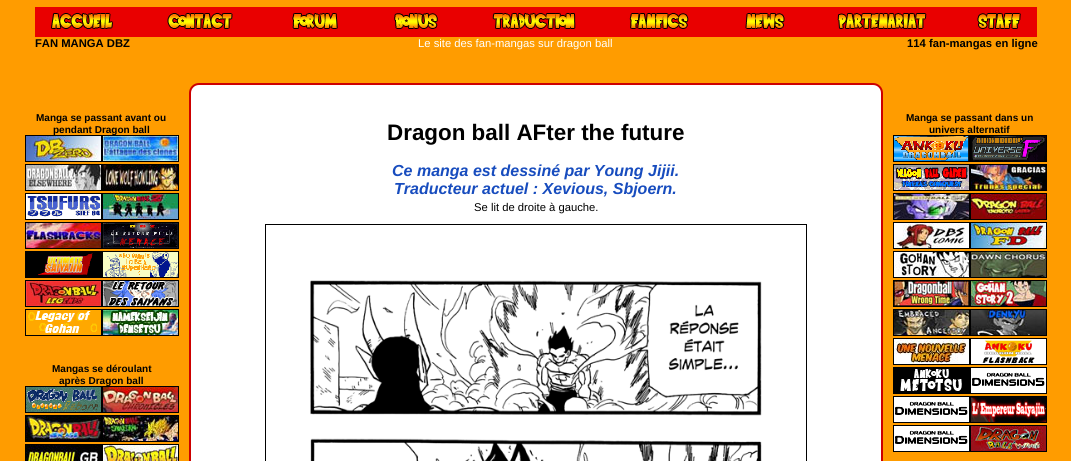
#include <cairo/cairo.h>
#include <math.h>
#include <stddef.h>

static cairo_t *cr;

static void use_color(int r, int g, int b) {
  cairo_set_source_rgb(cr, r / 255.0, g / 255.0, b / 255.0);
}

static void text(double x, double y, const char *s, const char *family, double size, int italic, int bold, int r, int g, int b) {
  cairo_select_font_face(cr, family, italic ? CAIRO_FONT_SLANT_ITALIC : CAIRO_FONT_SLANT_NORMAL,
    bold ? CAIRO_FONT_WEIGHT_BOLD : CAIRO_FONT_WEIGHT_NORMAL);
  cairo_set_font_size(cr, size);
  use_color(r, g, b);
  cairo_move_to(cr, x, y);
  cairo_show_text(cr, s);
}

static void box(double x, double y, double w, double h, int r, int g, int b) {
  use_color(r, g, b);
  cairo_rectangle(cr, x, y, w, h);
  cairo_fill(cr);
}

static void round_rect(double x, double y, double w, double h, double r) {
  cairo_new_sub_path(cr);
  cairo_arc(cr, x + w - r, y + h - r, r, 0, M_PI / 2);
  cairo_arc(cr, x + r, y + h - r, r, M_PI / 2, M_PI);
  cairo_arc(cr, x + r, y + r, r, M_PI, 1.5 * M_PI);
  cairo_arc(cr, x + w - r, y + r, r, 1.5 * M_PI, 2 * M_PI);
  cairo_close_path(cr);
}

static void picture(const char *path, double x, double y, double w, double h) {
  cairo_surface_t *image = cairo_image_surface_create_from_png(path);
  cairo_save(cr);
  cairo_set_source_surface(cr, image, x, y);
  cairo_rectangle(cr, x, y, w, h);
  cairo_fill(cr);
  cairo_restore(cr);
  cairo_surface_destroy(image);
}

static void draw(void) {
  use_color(255, 156, 0);
  cairo_paint(cr);
  box(35, 7, 1002, 30, 233, 0, 0);
  picture("img_01.png", 51, 13, 62, 16);
  picture("img_02.png", 167, 13, 66, 16);
  picture("img_03.png", 292, 13, 46, 16);
  picture("img_04.png", 394, 13, 44, 16);
  picture("img_05.png", 492, 13, 84, 16);
  picture("img_06.png", 629, 13, 60, 16);
  picture("img_07.png", 745, 13, 40, 16);
  picture("img_08.png", 837, 13, 90, 16);
  picture("img_09.png", 977, 13, 44, 16);
  cairo_rectangle(cr, 25.5, 135.5, 76, 26);
  use_color(0, 0, 0);
  cairo_set_line_width(cr, 1);
  cairo_stroke(cr);
  picture("img_10.png", 26, 136, 75, 25);
  cairo_rectangle(cr, 102.5, 135.5, 76, 26);
  cairo_stroke(cr);
  picture("img_11.png", 103, 136, 75, 25);
  cairo_rectangle(cr, 25.5, 164.5, 76, 26);
  cairo_stroke(cr);
  picture("img_12.png", 26, 165, 75, 25);
  cairo_rectangle(cr, 102.5, 164.5, 76, 26);
  cairo_stroke(cr);
  picture("img_13.png", 103, 165, 75, 25);
  cairo_rectangle(cr, 25.5, 193.5, 76, 26);
  cairo_stroke(cr);
  picture("img_14.png", 26, 194, 75, 25);
  cairo_rectangle(cr, 102.5, 193.5, 76, 26);
  cairo_stroke(cr);
  picture("img_15.png", 103, 194, 75, 25);
  cairo_rectangle(cr, 25.5, 222.5, 76, 26);
  cairo_stroke(cr);
  picture("img_16.png", 26, 223, 75, 25);
  cairo_rectangle(cr, 102.5, 222.5, 76, 26);
  cairo_stroke(cr);
  picture("img_17.png", 103, 223, 75, 25);
  cairo_rectangle(cr, 25.5, 251.5, 76, 26);
  cairo_stroke(cr);
  picture("img_18.png", 26, 252, 75, 25);
  cairo_rectangle(cr, 102.5, 251.5, 76, 26);
  cairo_stroke(cr);
  picture("img_19.png", 103, 252, 75, 25);
  cairo_rectangle(cr, 25.5, 280.5, 76, 26);
  cairo_stroke(cr);
  picture("img_20.png", 26, 281, 75, 25);
  cairo_rectangle(cr, 102.5, 280.5, 76, 26);
  cairo_stroke(cr);
  picture("img_21.png", 103, 281, 75, 25);
  cairo_rectangle(cr, 25.5, 309.5, 76, 26);
  cairo_stroke(cr);
  picture("img_22.png", 26, 310, 75, 25);
  cairo_rectangle(cr, 102.5, 309.5, 76, 26);
  cairo_stroke(cr);
  picture("img_23.png", 103, 310, 75, 25);
  cairo_rectangle(cr, 25.5, 386.5, 76, 26);
  cairo_stroke(cr);
  picture("img_24.png", 26, 387, 75, 25);
  cairo_rectangle(cr, 102.5, 386.5, 76, 26);
  cairo_stroke(cr);
  picture("img_25.png", 103, 387, 75, 25);
  cairo_rectangle(cr, 25.5, 415.5, 76, 26);
  cairo_stroke(cr);
  picture("img_26.png", 26, 416, 75, 25);
  cairo_rectangle(cr, 102.5, 415.5, 76, 26);
  cairo_stroke(cr);
  picture("img_27.png", 103, 416, 75, 25);
  cairo_rectangle(cr, 25.5, 444.5, 76, 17);
  cairo_stroke(cr);
  picture("img_28.png", 26, 445, 75, 16);
  cairo_rectangle(cr, 102.5, 444.5, 76, 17);
  cairo_stroke(cr);
  picture("img_29.png", 103, 445, 75, 16);
  use_color(255, 255, 255);
  round_rect(190, 84, 692, 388, 9);
  cairo_fill_preserve(cr);
  use_color(205, 0, 0);
  cairo_set_line_width(cr, 2);
  cairo_stroke(cr);
  cairo_rectangle(cr, 265.5, 224.5, 541, 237);
  use_color(0, 0, 0);
  cairo_set_line_width(cr, 1);
  cairo_stroke(cr);
  picture("img_30.png", 310, 280, 452, 181);
  cairo_rectangle(cr, 893.5, 135.5, 76, 26);
  cairo_stroke(cr);
  picture("img_31.png", 894, 136, 75, 25);
  cairo_rectangle(cr, 970.5, 135.5, 76, 26);
  cairo_stroke(cr);
  picture("img_32.png", 971, 136, 75, 25);
  cairo_rectangle(cr, 893.5, 164.5, 76, 26);
  cairo_stroke(cr);
  picture("img_33.png", 894, 165, 75, 25);
  cairo_rectangle(cr, 970.5, 164.5, 76, 26);
  cairo_stroke(cr);
  picture("img_34.png", 971, 165, 75, 25);
  cairo_rectangle(cr, 893.5, 193.5, 76, 26);
  cairo_stroke(cr);
  picture("img_35.png", 894, 194, 75, 25);
  cairo_rectangle(cr, 970.5, 193.5, 76, 26);
  cairo_stroke(cr);
  picture("img_36.png", 971, 194, 75, 25);
  cairo_rectangle(cr, 893.5, 222.5, 76, 26);
  cairo_stroke(cr);
  picture("img_37.png", 894, 223, 75, 25);
  cairo_rectangle(cr, 970.5, 222.5, 76, 26);
  cairo_stroke(cr);
  picture("img_38.png", 971, 223, 75, 25);
  cairo_rectangle(cr, 893.5, 251.5, 76, 26);
  cairo_stroke(cr);
  picture("img_39.png", 894, 252, 75, 25);
  cairo_rectangle(cr, 970.5, 251.5, 76, 26);
  cairo_stroke(cr);
  picture("img_40.png", 971, 252, 75, 25);
  cairo_rectangle(cr, 893.5, 280.5, 76, 26);
  cairo_stroke(cr);
  picture("img_41.png", 894, 281, 75, 25);
  cairo_rectangle(cr, 970.5, 280.5, 76, 26);
  cairo_stroke(cr);
  picture("img_42.png", 971, 281, 75, 25);
  cairo_rectangle(cr, 893.5, 309.5, 76, 26);
  cairo_stroke(cr);
  picture("img_43.png", 894, 310, 75, 25);
  cairo_rectangle(cr, 970.5, 309.5, 76, 26);
  cairo_stroke(cr);
  picture("img_44.png", 971, 310, 75, 25);
  cairo_rectangle(cr, 893.5, 338.5, 76, 26);
  cairo_stroke(cr);
  picture("img_45.png", 894, 339, 75, 25);
  cairo_rectangle(cr, 970.5, 338.5, 76, 26);
  cairo_stroke(cr);
  picture("img_46.png", 971, 339, 75, 25);
  cairo_rectangle(cr, 893.5, 367.5, 76, 26);
  cairo_stroke(cr);
  picture("img_47.png", 894, 368, 75, 25);
  cairo_rectangle(cr, 970.5, 367.5, 76, 26);
  cairo_stroke(cr);
  picture("img_48.png", 971, 368, 75, 25);
  cairo_rectangle(cr, 893.5, 396.5, 76, 26);
  cairo_stroke(cr);
  picture("img_48.png", 894, 397, 75, 25);
  cairo_rectangle(cr, 970.5, 396.5, 76, 26);
  cairo_stroke(cr);
  picture("img_49.png", 971, 397, 75, 25);
  cairo_rectangle(cr, 893.5, 425.5, 76, 26);
  cairo_stroke(cr);
  picture("img_48.png", 894, 426, 75, 25);
  cairo_rectangle(cr, 970.5, 425.5, 76, 26);
  cairo_stroke(cr);
  picture("img_50.png", 971, 426, 75, 25);
  text(35, 47, "FAN MANGA DBZ", "Liberation Sans", 11.25, 0, 1, 0, 0, 0);
  text(418, 47, "Le site des fan-mangas sur dragon ball", "Liberation Sans", 11.25, 0, 0, 255, 255, 255);
  text(907, 47, "114 fan-mangas en ligne", "Liberation Sans", 11.25, 0, 1, 0, 0, 0);
  text(36, 121, "Manga se passant avant ou", "Liberation Sans", 10, 0, 1, 0, 0, 0);
  text(53, 133, "pendant Dragon ball", "Liberation Sans", 10, 0, 1, 0, 0, 0);
  text(52, 372, "Mangas se déroulant", "Liberation Sans", 10, 0, 1, 0, 0, 0);
  text(59, 384, "après Dragon ball", "Liberation Sans", 10, 0, 1, 0, 0, 0);
  text(387, 140, "Dragon ball AFter the future", "Liberation Sans", 22.4, 0, 1, 0, 0, 0);
  text(392, 176, "Ce manga est dessiné par Young Jijii.", "Liberation Sans", 16, 1, 1, 23, 76, 190);
  text(394, 194, "Traducteur actuel : Xevious, Sbjoern.", "Liberation Sans", 16, 1, 1, 23, 76, 190);
  text(474, 211, "Se lit de droite à gauche.", "Liberation Sans", 11.25, 0, 0, 0, 0, 0);
  text(906, 121, "Manga se passant dans un", "Liberation Sans", 10, 0, 1, 0, 0, 0);
  text(929, 133, "univers alternatif", "Liberation Sans", 10, 0, 1, 0, 0, 0);
}

int main(void) {
  cairo_surface_t *surface = cairo_image_surface_create(CAIRO_FORMAT_RGB24, 1071, 461);
  cr = cairo_create(surface);
  cairo_font_options_t *options = cairo_font_options_create();
  cairo_font_options_set_hint_metrics(options, CAIRO_HINT_METRICS_OFF);
  cairo_font_options_set_hint_style(options, CAIRO_HINT_STYLE_NONE);
  cairo_set_font_options(cr, options);
  cairo_set_miter_limit(cr, 4);
  draw();
  cairo_surface_write_to_png(surface, "out.png");
  cairo_font_options_destroy(options);
  cairo_destroy(cr);
  cairo_surface_destroy(surface);
  return 0;
}
